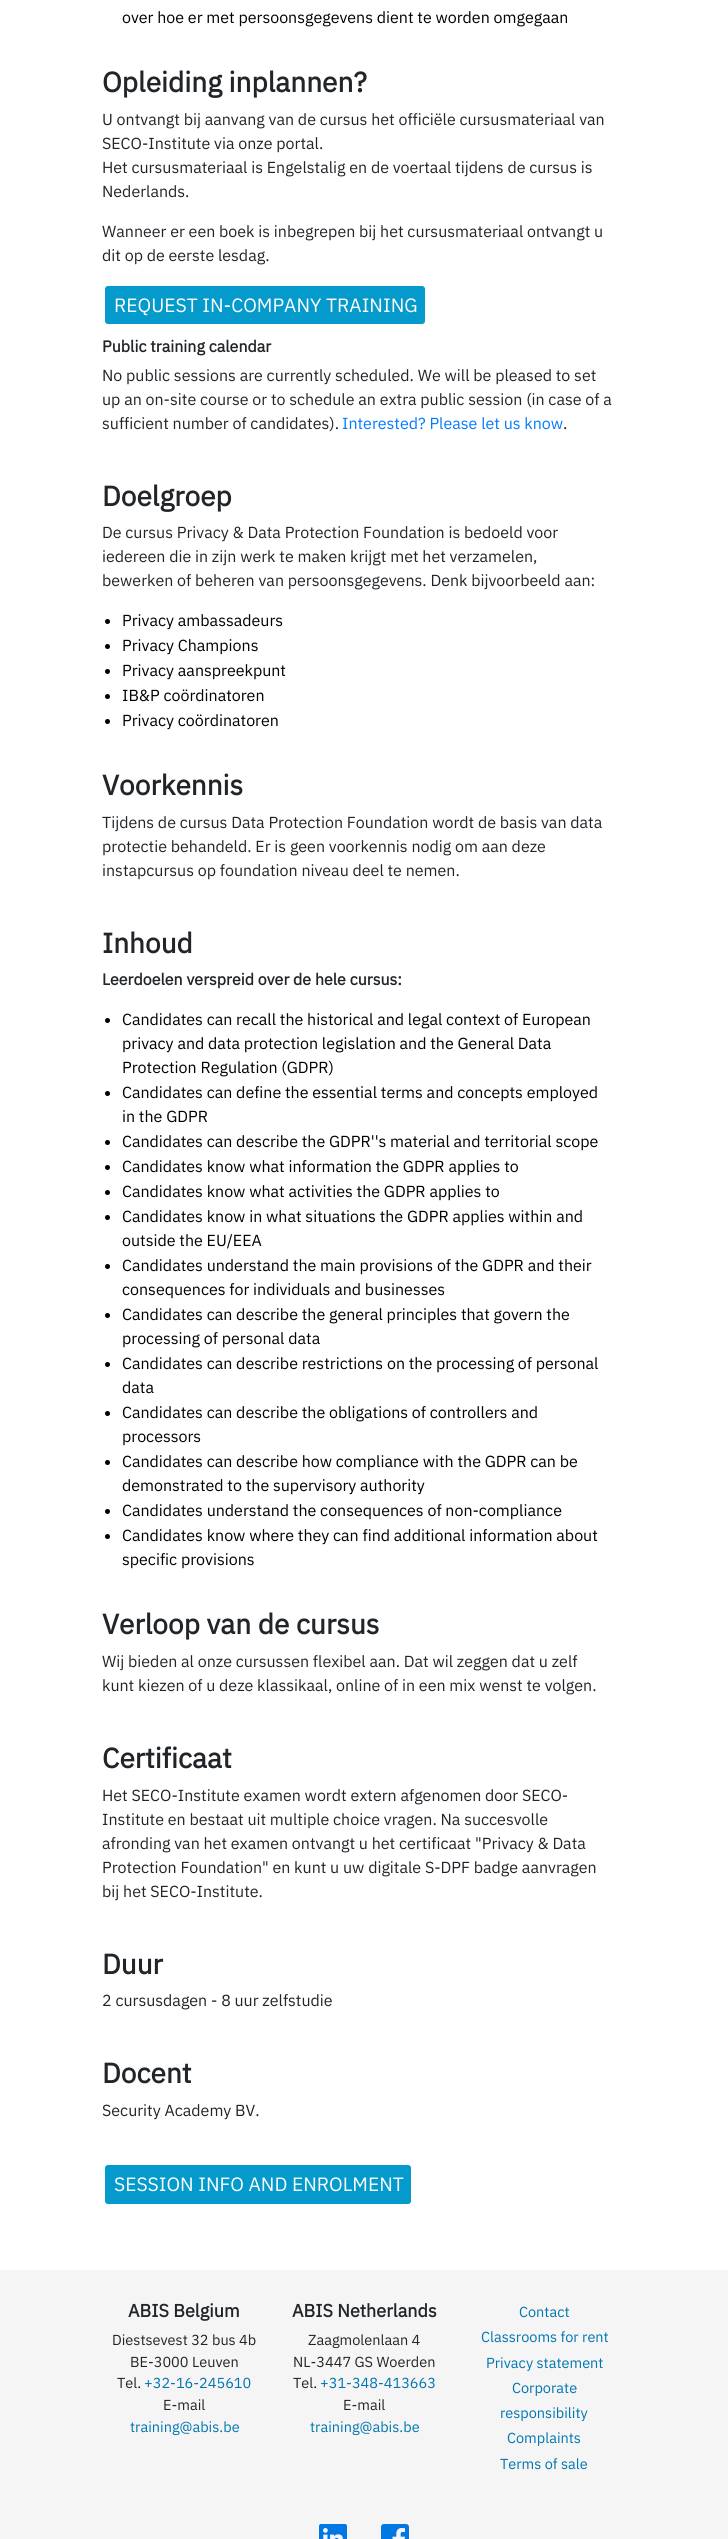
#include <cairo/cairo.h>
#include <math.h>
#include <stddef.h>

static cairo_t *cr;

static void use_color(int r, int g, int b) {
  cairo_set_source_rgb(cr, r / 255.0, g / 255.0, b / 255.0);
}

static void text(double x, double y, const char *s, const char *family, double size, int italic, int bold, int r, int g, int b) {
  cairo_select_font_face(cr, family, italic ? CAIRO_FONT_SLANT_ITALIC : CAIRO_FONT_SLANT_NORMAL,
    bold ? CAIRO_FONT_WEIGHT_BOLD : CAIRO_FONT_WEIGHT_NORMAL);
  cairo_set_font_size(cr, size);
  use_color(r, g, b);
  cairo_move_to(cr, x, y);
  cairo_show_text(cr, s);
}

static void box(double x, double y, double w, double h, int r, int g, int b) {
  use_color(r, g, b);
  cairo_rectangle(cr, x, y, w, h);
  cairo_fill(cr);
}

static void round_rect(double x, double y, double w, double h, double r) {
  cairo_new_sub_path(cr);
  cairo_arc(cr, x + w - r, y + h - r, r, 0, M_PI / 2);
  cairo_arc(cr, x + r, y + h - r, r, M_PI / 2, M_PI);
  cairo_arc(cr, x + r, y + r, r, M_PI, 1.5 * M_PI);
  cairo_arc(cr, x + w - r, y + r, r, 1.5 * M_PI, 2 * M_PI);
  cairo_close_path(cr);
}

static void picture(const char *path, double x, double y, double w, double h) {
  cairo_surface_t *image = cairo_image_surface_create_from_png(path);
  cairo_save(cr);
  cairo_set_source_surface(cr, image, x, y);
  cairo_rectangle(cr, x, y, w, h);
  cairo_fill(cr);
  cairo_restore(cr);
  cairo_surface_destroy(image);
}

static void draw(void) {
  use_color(255, 255, 255);
  cairo_paint(cr);
  use_color(4, 154, 204);
  round_rect(105.5, 286.5, 319, 37, 2.5);
  cairo_fill_preserve(cr);
  cairo_set_line_width(cr, 1);
  cairo_stroke(cr);
  use_color(0, 0, 0);
  cairo_arc(cr, 107.5, 621.5, 2.5, 0, 2 * M_PI);
  cairo_fill(cr);
  cairo_arc(cr, 107.5, 646.5, 2.5, 0, 2 * M_PI);
  cairo_fill(cr);
  cairo_arc(cr, 107.5, 671.5, 2.5, 0, 2 * M_PI);
  cairo_fill(cr);
  cairo_arc(cr, 107.5, 696.5, 2.5, 0, 2 * M_PI);
  cairo_fill(cr);
  cairo_arc(cr, 107.5, 721.5, 2.5, 0, 2 * M_PI);
  cairo_fill(cr);
  cairo_arc(cr, 107.5, 1020.5, 2.5, 0, 2 * M_PI);
  cairo_fill(cr);
  cairo_arc(cr, 107.5, 1093.5, 2.5, 0, 2 * M_PI);
  cairo_fill(cr);
  cairo_arc(cr, 107.5, 1142.5, 2.5, 0, 2 * M_PI);
  cairo_fill(cr);
  cairo_arc(cr, 107.5, 1167.5, 2.5, 0, 2 * M_PI);
  cairo_fill(cr);
  cairo_arc(cr, 107.5, 1192.5, 2.5, 0, 2 * M_PI);
  cairo_fill(cr);
  cairo_arc(cr, 107.5, 1217.5, 2.5, 0, 2 * M_PI);
  cairo_fill(cr);
  cairo_arc(cr, 107.5, 1266.5, 2.5, 0, 2 * M_PI);
  cairo_fill(cr);
  cairo_arc(cr, 107.5, 1315.5, 2.5, 0, 2 * M_PI);
  cairo_fill(cr);
  cairo_arc(cr, 107.5, 1364.5, 2.5, 0, 2 * M_PI);
  cairo_fill(cr);
  cairo_arc(cr, 107.5, 1413.5, 2.5, 0, 2 * M_PI);
  cairo_fill(cr);
  cairo_arc(cr, 107.5, 1462.5, 2.5, 0, 2 * M_PI);
  cairo_fill(cr);
  cairo_arc(cr, 107.5, 1511.5, 2.5, 0, 2 * M_PI);
  cairo_fill(cr);
  cairo_arc(cr, 107.5, 1536.5, 2.5, 0, 2 * M_PI);
  cairo_fill(cr);
  use_color(4, 154, 204);
  round_rect(105.5, 2165.5, 305, 38, 2.5);
  cairo_fill_preserve(cr);
  cairo_stroke(cr);
  box(0, 2270, 728, 269, 245, 245, 245);
  picture("img_01.png", 319, 2524, 28, 15);
  picture("img_02.png", 381, 2524, 28, 15);
  text(122, 23, "over hoe er met persoonsgegevens dient te worden omgegaan", "IBM Plex Sans", 16, 0, 0, 0, 0, 0);
  text(102, 92, "Opleiding inplannen?", "IBM Plex Sans", 28, 0, 1, 33, 37, 41);
  text(102, 125, "U ontvangt bij aanvang van de cursus het officiële cursusmateriaal van", "IBM Plex Sans", 16, 0, 0, 33, 37, 41);
  text(102, 149, "SECO-Institute via onze portal.", "IBM Plex Sans", 16, 0, 0, 33, 37, 41);
  text(102, 173, "Het cursusmateriaal is Engelstalig en de voertaal tijdens de cursus is", "IBM Plex Sans", 16, 0, 0, 33, 37, 41);
  text(102, 197, "Nederlands.", "IBM Plex Sans", 16, 0, 0, 33, 37, 41);
  text(102, 237, "Wanneer er een boek is inbegrepen bij het cursusmateriaal ontvangt u", "IBM Plex Sans", 16, 0, 0, 33, 37, 41);
  text(102, 261, "dit op de eerste lesdag.", "IBM Plex Sans", 16, 0, 0, 33, 37, 41);
  text(114, 312, "REQUEST IN-COMPANY TRAINING", "IBM Plex Sans", 19.25, 0, 0, 255, 255, 255);
  text(102, 352, "Public training calendar", "IBM Plex Sans", 16, 0, 1, 33, 37, 41);
  text(102, 381, "No public sessions are currently scheduled. We will be pleased to set", "IBM Plex Sans", 16, 0, 0, 33, 37, 41);
  text(102, 405, "up an on-site course or to schedule an extra public session (in case of a", "IBM Plex Sans", 16, 0, 0, 33, 37, 41);
  text(102, 429, "sufficient number of candidates).", "IBM Plex Sans", 16, 0, 0, 33, 37, 41);
  text(342, 429, "Interested? Please let us know", "IBM Plex Sans", 16, 0, 0, 0, 123, 255);
  text(563, 429, ".", "IBM Plex Sans", 16, 0, 0, 33, 37, 41);
  text(102, 506, "Doelgroep", "IBM Plex Sans", 28, 0, 1, 33, 37, 41);
  text(102, 538, "De cursus Privacy & Data Protection Foundation is bedoeld voor", "IBM Plex Sans", 16, 0, 0, 33, 37, 41);
  text(102, 562, "iedereen die in zijn werk te maken krijgt met het verzamelen,", "IBM Plex Sans", 16, 0, 0, 33, 37, 41);
  text(102, 586, "bewerken of beheren van persoonsgegevens. Denk bijvoorbeeld aan:", "IBM Plex Sans", 16, 0, 0, 33, 37, 41);
  text(122, 626, "Privacy ambassadeurs", "IBM Plex Sans", 16, 0, 0, 0, 0, 0);
  text(122, 651, "Privacy Champions", "IBM Plex Sans", 16, 0, 0, 0, 0, 0);
  text(122, 676, "Privacy aanspreekpunt", "IBM Plex Sans", 16, 0, 0, 0, 0, 0);
  text(122, 701, "IB&P coördinatoren", "IBM Plex Sans", 16, 0, 0, 0, 0, 0);
  text(122, 726, "Privacy coördinatoren", "IBM Plex Sans", 16, 0, 0, 0, 0, 0);
  text(102, 795, "Voorkennis", "IBM Plex Sans", 28, 0, 1, 33, 37, 41);
  text(102, 828, "Tijdens de cursus Data Protection Foundation wordt de basis van data", "IBM Plex Sans", 16, 0, 0, 33, 37, 41);
  text(102, 852, "protectie behandeld. Er is geen voorkennis nodig om aan deze", "IBM Plex Sans", 16, 0, 0, 33, 37, 41);
  text(102, 876, "instapcursus op foundation niveau deel te nemen.", "IBM Plex Sans", 16, 0, 0, 33, 37, 41);
  text(102, 953, "Inhoud", "IBM Plex Sans", 28, 0, 1, 33, 37, 41);
  text(102, 985, "Leerdoelen verspreid over de hele cursus:", "IBM Plex Sans", 16, 0, 1, 33, 37, 41);
  text(122, 1025, "Candidates can recall the historical and legal context of European", "IBM Plex Sans", 16, 0, 0, 0, 0, 0);
  text(122, 1049, "privacy and data protection legislation and the General Data", "IBM Plex Sans", 16, 0, 0, 0, 0, 0);
  text(122, 1073, "Protection Regulation (GDPR)", "IBM Plex Sans", 16, 0, 0, 0, 0, 0);
  text(122, 1098, "Candidates can define the essential terms and concepts employed", "IBM Plex Sans", 16, 0, 0, 0, 0, 0);
  text(122, 1122, "in the GDPR", "IBM Plex Sans", 16, 0, 0, 0, 0, 0);
  text(122, 1147, "Candidates can describe the GDPR''s material and territorial scope", "IBM Plex Sans", 16, 0, 0, 0, 0, 0);
  text(122, 1172, "Candidates know what information the GDPR applies to", "IBM Plex Sans", 16, 0, 0, 0, 0, 0);
  text(122, 1197, "Candidates know what activities the GDPR applies to", "IBM Plex Sans", 16, 0, 0, 0, 0, 0);
  text(122, 1222, "Candidates know in what situations the GDPR applies within and", "IBM Plex Sans", 16, 0, 0, 0, 0, 0);
  text(122, 1246, "outside the EU/EEA", "IBM Plex Sans", 16, 0, 0, 0, 0, 0);
  text(122, 1271, "Candidates understand the main provisions of the GDPR and their", "IBM Plex Sans", 16, 0, 0, 0, 0, 0);
  text(122, 1295, "consequences for individuals and businesses", "IBM Plex Sans", 16, 0, 0, 0, 0, 0);
  text(122, 1320, "Candidates can describe the general principles that govern the", "IBM Plex Sans", 16, 0, 0, 0, 0, 0);
  text(122, 1344, "processing of personal data", "IBM Plex Sans", 16, 0, 0, 0, 0, 0);
  text(122, 1369, "Candidates can describe restrictions on the processing of personal", "IBM Plex Sans", 16, 0, 0, 0, 0, 0);
  text(122, 1393, "data", "IBM Plex Sans", 16, 0, 0, 0, 0, 0);
  text(122, 1418, "Candidates can describe the obligations of controllers and", "IBM Plex Sans", 16, 0, 0, 0, 0, 0);
  text(122, 1442, "processors", "IBM Plex Sans", 16, 0, 0, 0, 0, 0);
  text(122, 1467, "Candidates can describe how compliance with the GDPR can be", "IBM Plex Sans", 16, 0, 0, 0, 0, 0);
  text(122, 1491, "demonstrated to the supervisory authority", "IBM Plex Sans", 16, 0, 0, 0, 0, 0);
  text(122, 1516, "Candidates understand the consequences of non-compliance", "IBM Plex Sans", 16, 0, 0, 0, 0, 0);
  text(122, 1541, "Candidates know where they can find additional information about", "IBM Plex Sans", 16, 0, 0, 0, 0, 0);
  text(122, 1565, "specific provisions", "IBM Plex Sans", 16, 0, 0, 0, 0, 0);
  text(102, 1634, "Verloop van de cursus", "IBM Plex Sans", 28, 0, 1, 33, 37, 41);
  text(102, 1667, "Wij bieden al onze cursussen flexibel aan. Dat wil zeggen dat u zelf", "IBM Plex Sans", 16, 0, 0, 33, 37, 41);
  text(102, 1691, "kunt kiezen of u deze klassikaal, online of in een mix wenst te volgen.", "IBM Plex Sans", 16, 0, 0, 33, 37, 41);
  text(102, 1768, "Certificaat", "IBM Plex Sans", 28, 0, 1, 33, 37, 41);
  text(102, 1801, "Het SECO-Institute examen wordt extern afgenomen door SECO-", "IBM Plex Sans", 16, 0, 0, 33, 37, 41);
  text(102, 1825, "Institute en bestaat uit multiple choice vragen. Na succesvolle", "IBM Plex Sans", 16, 0, 0, 33, 37, 41);
  text(102, 1849, "afronding van het examen ontvangt u het certificaat \"Privacy & Data", "IBM Plex Sans", 16, 0, 0, 33, 37, 41);
  text(102, 1873, "Protection Foundation\" en kunt u uw digitale S-DPF badge aanvragen", "IBM Plex Sans", 16, 0, 0, 33, 37, 41);
  text(102, 1897, "bij het SECO-Institute.", "IBM Plex Sans", 16, 0, 0, 33, 37, 41);
  text(102, 1974, "Duur", "IBM Plex Sans", 28, 0, 1, 33, 37, 41);
  text(102, 2006, "2 cursusdagen - 8 uur zelfstudie", "IBM Plex Sans", 16, 0, 0, 33, 37, 41);
  text(102, 2083, "Docent", "IBM Plex Sans", 28, 0, 1, 33, 37, 41);
  text(102, 2116, "Security Academy BV.", "IBM Plex Sans", 16, 0, 0, 33, 37, 41);
  text(114, 2191, "SESSION INFO AND ENROLMENT", "IBM Plex Sans", 19.25, 0, 0, 255, 255, 255);
  text(128, 2317, "ABIS Belgium", "IBM Plex Sans", 18, 0, 1, 33, 37, 41);
  text(112, 2345, "Diestsevest 32 bus 4b", "IBM Plex Sans", 14.5, 0, 0, 33, 37, 41);
  text(130, 2367, "BE-3000 Leuven", "IBM Plex Sans", 14.5, 0, 0, 33, 37, 41);
  text(117, 2388, "Tel.", "IBM Plex Sans", 14.5, 0, 0, 33, 37, 41);
  text(144, 2388, "+32-16-245610", "IBM Plex Sans", 14.5, 0, 0, 0, 117, 176);
  text(163, 2410, "E-mail", "IBM Plex Sans", 14.5, 0, 0, 33, 37, 41);
  text(130, 2432, "training@abis.be", "IBM Plex Sans", 14.5, 0, 0, 0, 117, 176);
  text(292, 2317, "ABIS Netherlands", "IBM Plex Sans", 18, 0, 1, 33, 37, 41);
  text(308, 2345, "Zaagmolenlaan 4", "IBM Plex Sans", 14.5, 0, 0, 33, 37, 41);
  text(293, 2367, "NL-3447 GS Woerden", "IBM Plex Sans", 14.5, 0, 0, 33, 37, 41);
  text(293, 2388, "Tel.", "IBM Plex Sans", 14.5, 0, 0, 33, 37, 41);
  text(320, 2388, "+31-348-413663", "IBM Plex Sans", 14.5, 0, 0, 0, 117, 176);
  text(343, 2410, "E-mail", "IBM Plex Sans", 14.5, 0, 0, 33, 37, 41);
  text(310, 2432, "training@abis.be", "IBM Plex Sans", 14.5, 0, 0, 0, 117, 176);
  text(519, 2317, "Contact", "IBM Plex Sans", 14.5, 0, 0, 0, 117, 176);
  text(481, 2342, "Classrooms for rent", "IBM Plex Sans", 14.5, 0, 0, 0, 117, 176);
  text(486, 2368, "Privacy statement", "IBM Plex Sans", 14.5, 0, 0, 0, 117, 176);
  text(512, 2393, "Corporate", "IBM Plex Sans", 14.5, 0, 0, 0, 117, 176);
  text(500, 2418, "responsibility", "IBM Plex Sans", 14.5, 0, 0, 0, 117, 176);
  text(507, 2443, "Complaints", "IBM Plex Sans", 14.5, 0, 0, 0, 117, 176);
  text(500, 2469, "Terms of sale", "IBM Plex Sans", 14.5, 0, 0, 0, 117, 176);
}

int main(void) {
  cairo_surface_t *surface = cairo_image_surface_create(CAIRO_FORMAT_RGB24, 728, 2539);
  cr = cairo_create(surface);
  cairo_font_options_t *options = cairo_font_options_create();
  cairo_font_options_set_hint_metrics(options, CAIRO_HINT_METRICS_OFF);
  cairo_font_options_set_hint_style(options, CAIRO_HINT_STYLE_NONE);
  cairo_set_font_options(cr, options);
  cairo_set_miter_limit(cr, 4);
  draw();
  cairo_surface_write_to_png(surface, "out.png");
  cairo_font_options_destroy(options);
  cairo_destroy(cr);
  cairo_surface_destroy(surface);
  return 0;
}
